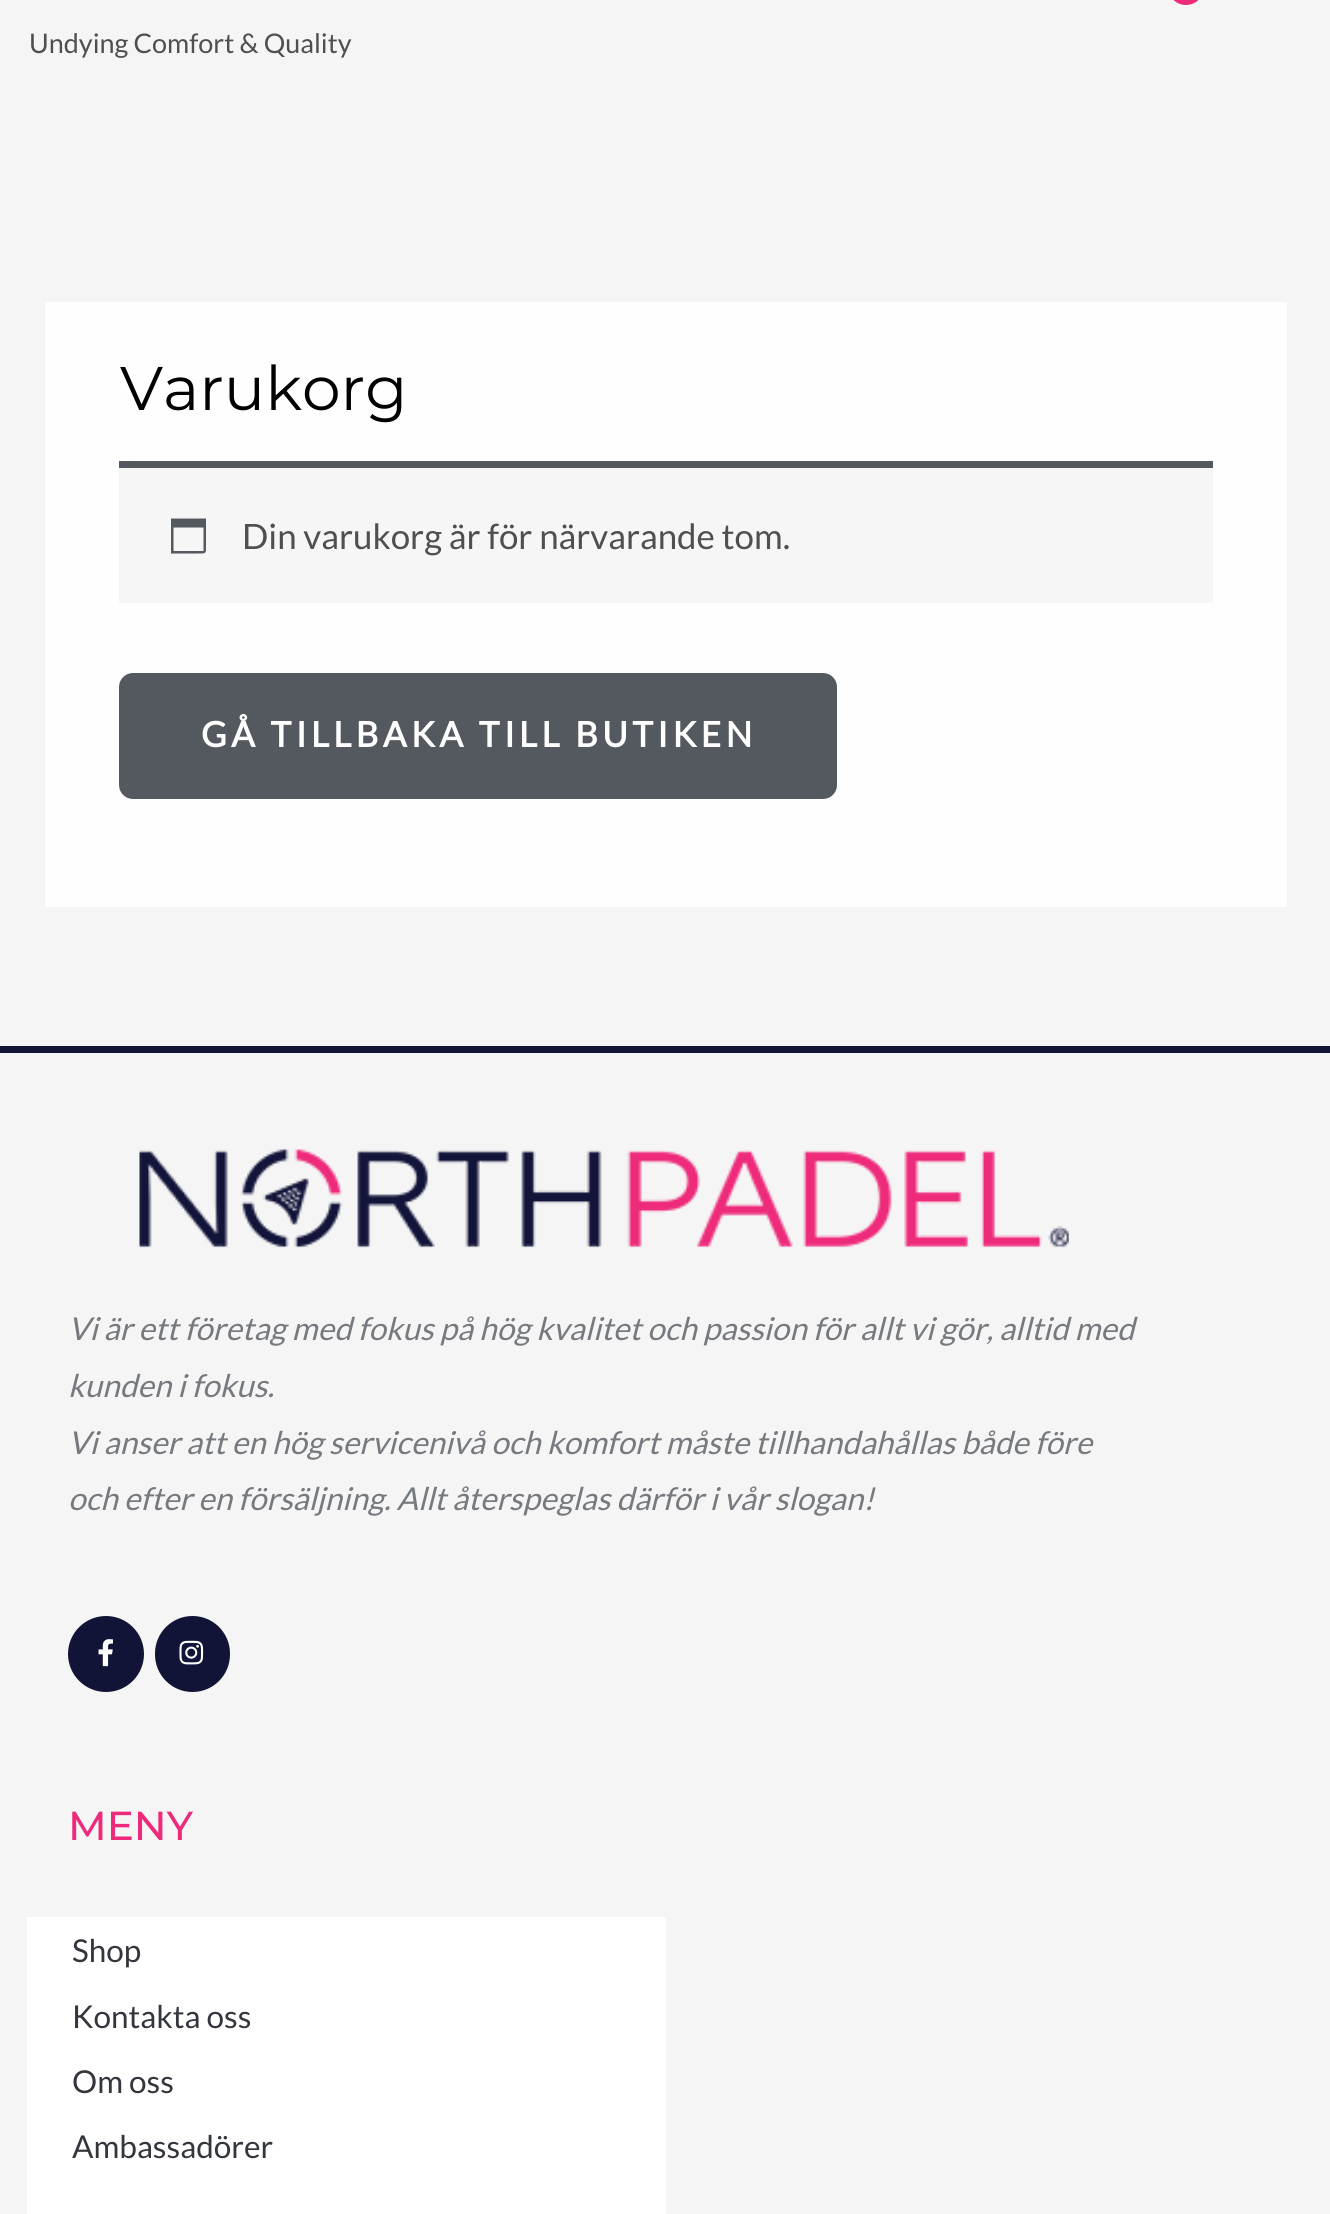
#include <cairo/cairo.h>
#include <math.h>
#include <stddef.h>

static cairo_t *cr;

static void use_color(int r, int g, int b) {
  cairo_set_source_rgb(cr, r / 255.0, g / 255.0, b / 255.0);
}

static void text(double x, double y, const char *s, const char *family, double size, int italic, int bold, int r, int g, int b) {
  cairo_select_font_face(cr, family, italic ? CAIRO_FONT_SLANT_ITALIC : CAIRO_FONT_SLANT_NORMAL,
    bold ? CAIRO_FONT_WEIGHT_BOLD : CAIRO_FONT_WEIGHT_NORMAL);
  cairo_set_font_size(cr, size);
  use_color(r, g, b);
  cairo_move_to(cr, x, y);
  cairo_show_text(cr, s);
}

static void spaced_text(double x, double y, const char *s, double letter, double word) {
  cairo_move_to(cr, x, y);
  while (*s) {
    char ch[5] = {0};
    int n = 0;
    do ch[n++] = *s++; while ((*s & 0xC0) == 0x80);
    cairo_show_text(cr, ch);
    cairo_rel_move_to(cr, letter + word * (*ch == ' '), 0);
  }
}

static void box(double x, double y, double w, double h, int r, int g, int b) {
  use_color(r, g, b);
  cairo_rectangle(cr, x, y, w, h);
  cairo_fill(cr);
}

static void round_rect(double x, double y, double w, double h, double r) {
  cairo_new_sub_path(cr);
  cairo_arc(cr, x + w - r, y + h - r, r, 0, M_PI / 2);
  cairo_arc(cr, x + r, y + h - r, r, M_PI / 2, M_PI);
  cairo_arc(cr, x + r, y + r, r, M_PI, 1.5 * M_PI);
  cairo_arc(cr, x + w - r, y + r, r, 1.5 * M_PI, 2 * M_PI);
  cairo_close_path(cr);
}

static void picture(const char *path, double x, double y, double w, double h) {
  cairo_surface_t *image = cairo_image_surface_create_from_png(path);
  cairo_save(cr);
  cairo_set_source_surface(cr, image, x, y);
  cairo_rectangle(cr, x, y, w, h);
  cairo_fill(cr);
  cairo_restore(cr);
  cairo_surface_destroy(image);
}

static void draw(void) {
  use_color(245, 245, 245);
  cairo_paint(cr);
  use_color(238, 42, 123);
  round_rect(1168, -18, 36, 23, 18);
  cairo_fill(cr);
  box(45, 302, 1242, 605, 254, 254, 254);
  box(119, 468, 1094, 135, 247, 246, 247);
  box(119, 461, 1094, 7, 84, 89, 95);
  cairo_new_path(cr);
  cairo_move_to(cr, 203.5, 527.5);
  cairo_line_to(cr, 173.5, 527.5);
  cairo_line_to(cr, 173.5, 551);
  cairo_line_to(cr, 203.5, 551);
  cairo_close_path(cr);
  cairo_move_to(cr, 206, 518.5);
  cairo_line_to(cr, 206, 545);
  cairo_curve_to(cr, 206, 554, 206.5, 553.5, 198, 553.5);
  cairo_line_to(cr, 171, 553.5);
  cairo_line_to(cr, 171, 518.5);
  cairo_close_path(cr);
  cairo_fill(cr);
  round_rect(119, 673, 718, 126, 14);
  cairo_fill(cr);
  box(0, 1046, 1330, 7, 17, 20, 55);
  picture("img_01.png", 139, 1149, 930, 99);
  cairo_arc(cr, 106, 1654, 38, 0, 2 * M_PI);
  cairo_fill(cr);
  picture("img_02.png", 98, 1639, 15, 28);
  round_rect(155, 1616, 75, 76, 37.5);
  cairo_fill(cr);
  picture("img_03.png", 179, 1640, 25, 25);
  box(27, 1917, 639, 297, 255, 255, 255);
  text(29, 53, "Undying Comfort & Quality", "Lato", 27, 0, 0, 79, 79, 79);
  text(120, 410, "Varukorg", "Montserrat", 61.5, 0, 0, 0, 0, 0);
  text(242, 549, "Din varukorg är för närvarande tom.", "Lato", 34.9, 0, 0, 79, 79, 79);
  cairo_select_font_face(cr, "Lato", CAIRO_FONT_SLANT_NORMAL, CAIRO_FONT_WEIGHT_BOLD);
  use_color(254, 254, 254);
  spaced_text(201, 747, "GÅ TILLBAKA TILL BUTIKEN", 4.5, 0);
  text(68, 1340, "Vi är ett företag med fokus på hög kvalitet och passion för allt vi gör, alltid med", "Lato", 31.5, 1, 0, 118, 122, 127);
  text(68, 1397, "kunden i fokus.", "Lato", 31.5, 1, 0, 118, 122, 127);
  text(68, 1454, "Vi anser att en hög servicenivå och komfort måste tillhandahållas både före", "Lato", 31.5, 1, 0, 118, 122, 127);
  text(68, 1510, "och efter en försäljning. Allt återspeglas därför i vår slogan!", "Lato", 31.5, 1, 0, 118, 122, 127);
  text(68, 1840, "MENY", "Montserrat Medium", 40.5, 0, 0, 238, 42, 123);
  text(72, 1962, "Shop", "Lato", 31.5, 0, 0, 51, 55, 61);
  text(72, 2028, "Kontakta oss", "Lato", 31.5, 0, 0, 51, 55, 61);
  text(72, 2093, "Om oss", "Lato", 31.5, 0, 0, 51, 55, 61);
  text(72, 2158, "Ambassadörer", "Lato", 31.5, 0, 0, 51, 55, 61);
}

int main(void) {
  cairo_surface_t *surface = cairo_image_surface_create(CAIRO_FORMAT_RGB24, 1330, 2214);
  cr = cairo_create(surface);
  cairo_font_options_t *options = cairo_font_options_create();
  cairo_font_options_set_hint_metrics(options, CAIRO_HINT_METRICS_OFF);
  cairo_font_options_set_hint_style(options, CAIRO_HINT_STYLE_NONE);
  cairo_set_font_options(cr, options);
  cairo_set_miter_limit(cr, 4);
  draw();
  cairo_surface_write_to_png(surface, "out.png");
  cairo_font_options_destroy(options);
  cairo_destroy(cr);
  cairo_surface_destroy(surface);
  return 0;
}
